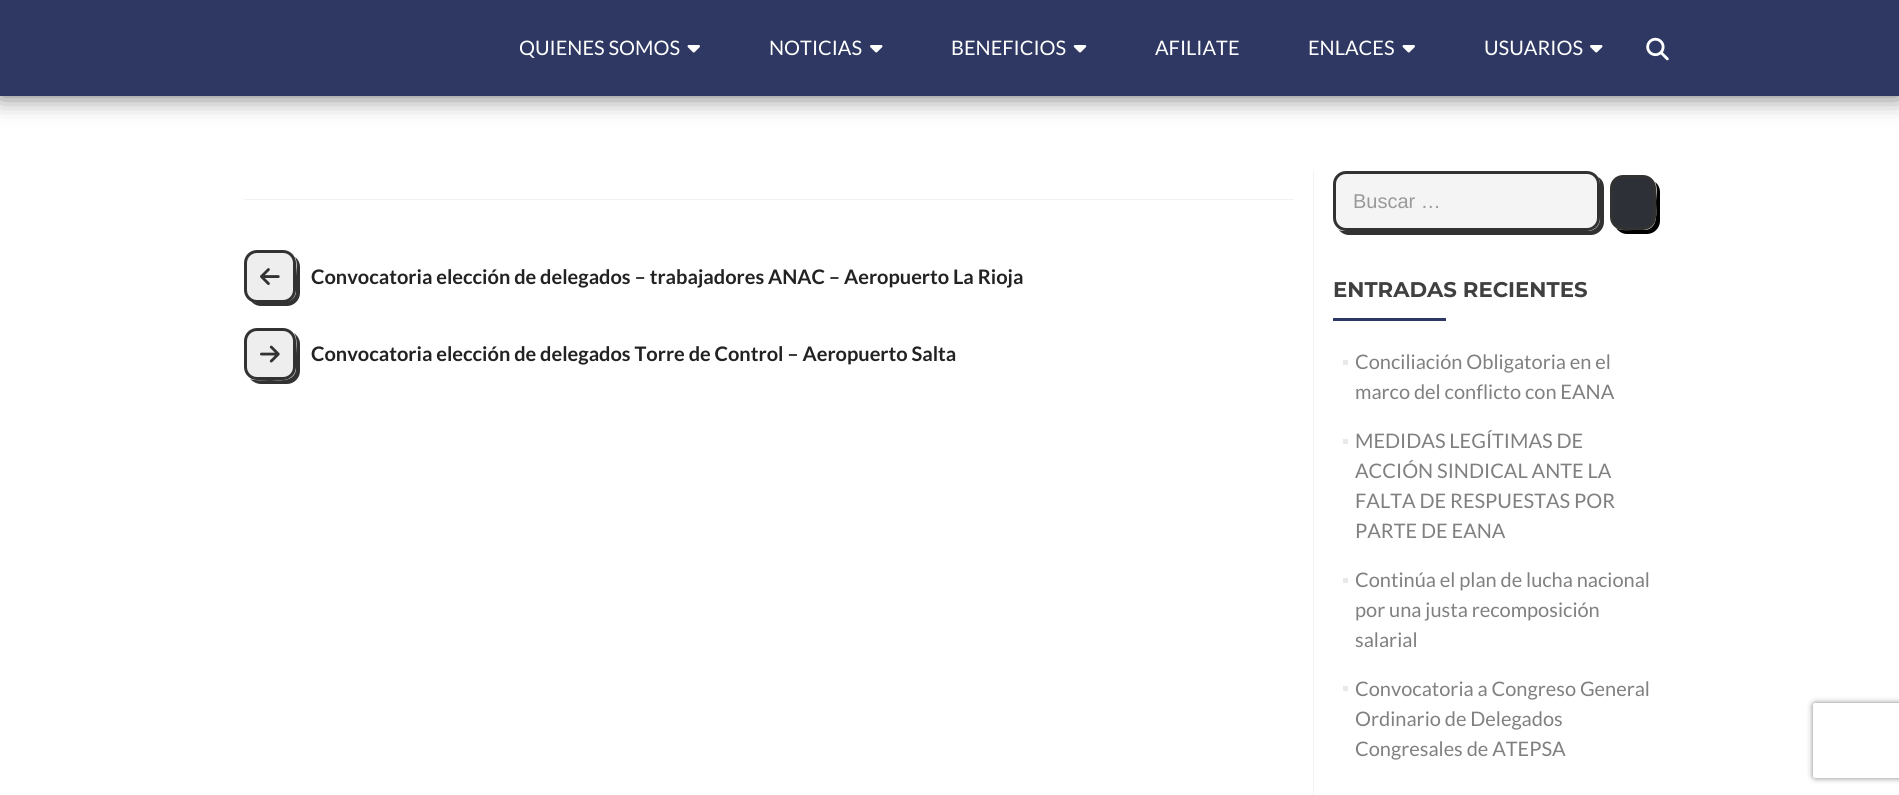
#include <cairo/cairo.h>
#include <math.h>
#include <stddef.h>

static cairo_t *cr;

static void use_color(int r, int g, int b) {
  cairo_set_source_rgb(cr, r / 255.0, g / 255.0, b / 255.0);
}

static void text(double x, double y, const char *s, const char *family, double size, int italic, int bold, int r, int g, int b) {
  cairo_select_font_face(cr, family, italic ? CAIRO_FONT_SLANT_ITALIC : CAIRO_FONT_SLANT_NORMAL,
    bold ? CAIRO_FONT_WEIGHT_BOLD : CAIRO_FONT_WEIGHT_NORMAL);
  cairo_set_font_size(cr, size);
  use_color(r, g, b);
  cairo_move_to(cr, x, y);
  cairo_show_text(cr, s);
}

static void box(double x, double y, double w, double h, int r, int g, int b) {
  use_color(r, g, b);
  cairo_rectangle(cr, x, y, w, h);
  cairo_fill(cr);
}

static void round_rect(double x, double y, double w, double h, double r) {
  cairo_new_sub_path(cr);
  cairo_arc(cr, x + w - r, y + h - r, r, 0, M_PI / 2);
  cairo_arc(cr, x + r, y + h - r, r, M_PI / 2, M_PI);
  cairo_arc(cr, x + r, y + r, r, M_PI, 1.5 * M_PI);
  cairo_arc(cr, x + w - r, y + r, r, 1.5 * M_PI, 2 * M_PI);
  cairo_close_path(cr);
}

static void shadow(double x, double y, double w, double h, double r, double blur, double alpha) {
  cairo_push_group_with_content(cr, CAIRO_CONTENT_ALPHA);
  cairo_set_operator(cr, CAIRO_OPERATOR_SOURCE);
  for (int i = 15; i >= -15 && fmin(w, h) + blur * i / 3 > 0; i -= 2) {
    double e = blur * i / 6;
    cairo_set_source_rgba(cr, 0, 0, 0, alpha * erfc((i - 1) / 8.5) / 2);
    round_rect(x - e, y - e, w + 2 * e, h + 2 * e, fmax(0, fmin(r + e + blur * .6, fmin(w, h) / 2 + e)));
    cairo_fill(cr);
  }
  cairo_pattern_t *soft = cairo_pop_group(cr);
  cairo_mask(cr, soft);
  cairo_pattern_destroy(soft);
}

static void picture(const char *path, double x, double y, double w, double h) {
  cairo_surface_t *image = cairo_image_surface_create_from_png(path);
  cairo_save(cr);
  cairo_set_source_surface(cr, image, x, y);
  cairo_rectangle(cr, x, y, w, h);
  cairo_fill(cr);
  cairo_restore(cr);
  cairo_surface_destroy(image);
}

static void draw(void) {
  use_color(255, 255, 255);
  cairo_paint(cr);
  use_color(0, 0, 0);
  shadow(0, 0, 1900, 96, 0, 12.5, 0.6);
  box(0, 0, 1899, 96, 46, 56, 99);
  picture("img_01.png", 687, 45, 13, 8);
  picture("img_02.png", 870, 45, 13, 8);
  picture("img_03.png", 1073, 45, 14, 8);
  picture("img_01.png", 1402, 45, 13, 8);
  picture("img_02.png", 1590, 45, 13, 8);
  picture("img_04.png", 1646, 37, 23, 24);
  box(244, 199, 1050, 1, 242, 242, 242);
  use_color(50, 50, 50);
  cairo_new_path(cr);
  cairo_move_to(cr, 251, 301);
  cairo_curve_to(cr, 253, 304, 257, 306, 261, 306);
  cairo_line_to(cr, 287, 306);
  cairo_curve_to(cr, 294, 306, 300, 300, 300, 293);
  cairo_line_to(cr, 300, 267);
  cairo_curve_to(cr, 300, 263, 298, 259, 295, 257);
  cairo_curve_to(cr, 298, 262, 296, 271, 296, 276);
  cairo_line_to(cr, 296, 293);
  cairo_curve_to(cr, 293, 305, 279, 302, 270, 302);
  cairo_curve_to(cr, 265, 302, 256, 304, 251, 301);
  cairo_close_path(cr);
  cairo_fill(cr);
  use_color(238, 238, 238);
  round_rect(245.5, 251.5, 49, 50, 11.5);
  cairo_fill_preserve(cr);
  use_color(50, 50, 50);
  cairo_set_line_width(cr, 3);
  cairo_stroke(cr);
  picture("img_05.png", 260, 268, 20, 17);
  cairo_new_path(cr);
  cairo_move_to(cr, 250, 379);
  cairo_curve_to(cr, 253, 382, 257, 384, 261, 384);
  cairo_line_to(cr, 287, 384);
  cairo_curve_to(cr, 294, 384, 300, 378, 300, 371);
  cairo_line_to(cr, 300, 344);
  cairo_curve_to(cr, 300, 340, 298, 336, 294, 333);
  cairo_curve_to(cr, 298, 339, 296, 348, 296, 354);
  cairo_line_to(cr, 296, 370);
  cairo_curve_to(cr, 293, 383, 279, 380, 270, 380);
  cairo_curve_to(cr, 264, 380, 256, 381, 250, 379);
  cairo_close_path(cr);
  cairo_fill(cr);
  use_color(238, 238, 238);
  round_rect(245.5, 329.5, 49, 49, 11.5);
  cairo_fill_preserve(cr);
  use_color(50, 50, 50);
  cairo_stroke(cr);
  picture("img_06.png", 260, 345, 20, 18);
  box(1313, 171, 1, 624, 242, 242, 242);
  use_color(50, 50, 50);
  cairo_new_path(cr);
  cairo_move_to(cr, 1338, 229);
  cairo_curve_to(cr, 1341, 233, 1345, 235, 1349, 235);
  cairo_line_to(cr, 1591, 235);
  cairo_curve_to(cr, 1598, 235, 1604, 229, 1604, 222);
  cairo_line_to(cr, 1604, 188);
  cairo_curve_to(cr, 1604, 183, 1602, 179, 1598, 177);
  cairo_curve_to(cr, 1599, 179, 1600, 181, 1600, 184);
  cairo_line_to(cr, 1600, 219);
  cairo_curve_to(cr, 1600, 226, 1594, 231, 1588, 231);
  cairo_line_to(cr, 1345, 231);
  cairo_curve_to(cr, 1342, 231, 1340, 231, 1338, 229);
  cairo_close_path(cr);
  cairo_fill(cr);
  use_color(244, 244, 244);
  round_rect(1334.5, 172.5, 264, 57, 11.5);
  cairo_fill_preserve(cr);
  use_color(50, 50, 50);
  cairo_stroke(cr);
  use_color(0, 0, 0);
  cairo_new_path(cr);
  cairo_move_to(cr, 1616, 228);
  cairo_curve_to(cr, 1619, 232, 1623, 234, 1627, 234);
  cairo_line_to(cr, 1647, 234);
  cairo_curve_to(cr, 1654, 234, 1660, 228, 1660, 221);
  cairo_line_to(cr, 1660, 192);
  cairo_curve_to(cr, 1660, 188, 1658, 184, 1655, 182);
  cairo_curve_to(cr, 1658, 187, 1656, 197, 1656, 202);
  cairo_curve_to(cr, 1656, 212, 1659, 227, 1646, 230);
  cairo_line_to(cr, 1633, 230);
  cairo_curve_to(cr, 1628, 230, 1621, 231, 1616, 228);
  cairo_close_path(cr);
  cairo_fill(cr);
  use_color(46, 48, 55);
  round_rect(1611.5, 176.5, 43, 52, 11.5);
  cairo_fill_preserve(cr);
  use_color(50, 50, 50);
  cairo_stroke(cr);
  box(1333, 318, 113, 3, 45, 57, 100);
  box(1343, 360, 5, 5, 233, 233, 233);
  box(1343, 439, 5, 5, 233, 233, 233);
  box(1343, 578, 5, 5, 233, 233, 233);
  box(1343, 686, 5, 5, 233, 233, 233);
  cairo_save(cr);
  cairo_set_fill_rule(cr, CAIRO_FILL_RULE_EVEN_ODD);
  cairo_new_path(cr);
  cairo_move_to(cr, 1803, 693);
  cairo_line_to(cr, 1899, 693);
  cairo_line_to(cr, 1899, 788);
  cairo_line_to(cr, 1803, 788);
  cairo_close_path(cr);
  cairo_move_to(cr, 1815.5, 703);
  cairo_line_to(cr, 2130.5, 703);
  cairo_curve_to(cr, 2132, 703, 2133, 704, 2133, 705.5);
  cairo_line_to(cr, 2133, 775.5);
  cairo_curve_to(cr, 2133, 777, 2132, 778, 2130.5, 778);
  cairo_line_to(cr, 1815.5, 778);
  cairo_curve_to(cr, 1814, 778, 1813, 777, 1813, 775.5);
  cairo_line_to(cr, 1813, 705.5);
  cairo_curve_to(cr, 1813, 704, 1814, 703, 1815.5, 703);
  cairo_close_path(cr);
  cairo_clip(cr);
  use_color(128, 128, 128);
  shadow(1813, 703, 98, 75, 2.5, 3, 1);
  cairo_restore(cr);
  text(519, 55, "QUIENES SOMOS", "Lato", 20, 0, 0, 255, 255, 255);
  text(769, 55, "NOTICIAS", "Lato", 20, 0, 0, 255, 255, 255);
  text(951, 55, "BENEFICIOS", "Lato", 20, 0, 0, 255, 255, 255);
  text(1155, 55, "AFILIATE", "Lato", 20, 0, 0, 255, 255, 255);
  text(1308, 55, "ENLACES", "Lato", 20, 0, 0, 255, 255, 255);
  text(1484, 55, "USUARIOS", "Lato", 20, 0, 0, 255, 255, 255);
  text(311, 284, "Convocatoria elección de delegados – trabajadores ANAC – Aeropuerto La Rioja", "Lato", 20, 0, 1, 34, 34, 34);
  text(311, 361, "Convocatoria elección de delegados Torre de Control – Aeropuerto Salta", "Lato", 20, 0, 1, 34, 34, 34);
  text(1353, 208, "Buscar …", "Liberation Sans", 20, 0, 0, 153, 153, 153);
  text(1333, 297, "ENTRADAS RECIENTES", "Montserrat", 21.25, 0, 1, 64, 64, 64);
  text(1355, 369, "Conciliación Obligatoria en el", "Lato", 20, 0, 0, 128, 128, 128);
  text(1355, 399, "marco del conflicto con EANA", "Lato", 20, 0, 0, 128, 128, 128);
  text(1355, 448, "MEDIDAS LEGÍTIMAS DE", "Lato", 20, 0, 0, 128, 128, 128);
  text(1355, 478, "ACCIÓN SINDICAL ANTE LA", "Lato", 20, 0, 0, 128, 128, 128);
  text(1355, 508, "FALTA DE RESPUESTAS POR", "Lato", 20, 0, 0, 128, 128, 128);
  text(1355, 538, "PARTE DE EANA", "Lato", 20, 0, 0, 128, 128, 128);
  text(1355, 587, "Continúa el plan de lucha nacional", "Lato", 20, 0, 0, 128, 128, 128);
  text(1355, 617, "por una justa recomposición", "Lato", 20, 0, 0, 128, 128, 128);
  text(1355, 647, "salarial", "Lato", 20, 0, 0, 128, 128, 128);
  text(1355, 696, "Convocatoria a Congreso General", "Lato", 20, 0, 0, 128, 128, 128);
  text(1355, 726, "Ordinario de Delegados", "Lato", 20, 0, 0, 128, 128, 128);
  text(1355, 756, "Congresales de ATEPSA", "Lato", 20, 0, 0, 128, 128, 128);
}

int main(void) {
  cairo_surface_t *surface = cairo_image_surface_create(CAIRO_FORMAT_RGB24, 1899, 795);
  cr = cairo_create(surface);
  cairo_font_options_t *options = cairo_font_options_create();
  cairo_font_options_set_hint_metrics(options, CAIRO_HINT_METRICS_OFF);
  cairo_font_options_set_hint_style(options, CAIRO_HINT_STYLE_NONE);
  cairo_set_font_options(cr, options);
  cairo_set_miter_limit(cr, 4);
  draw();
  cairo_surface_write_to_png(surface, "out.png");
  cairo_font_options_destroy(options);
  cairo_destroy(cr);
  cairo_surface_destroy(surface);
  return 0;
}
